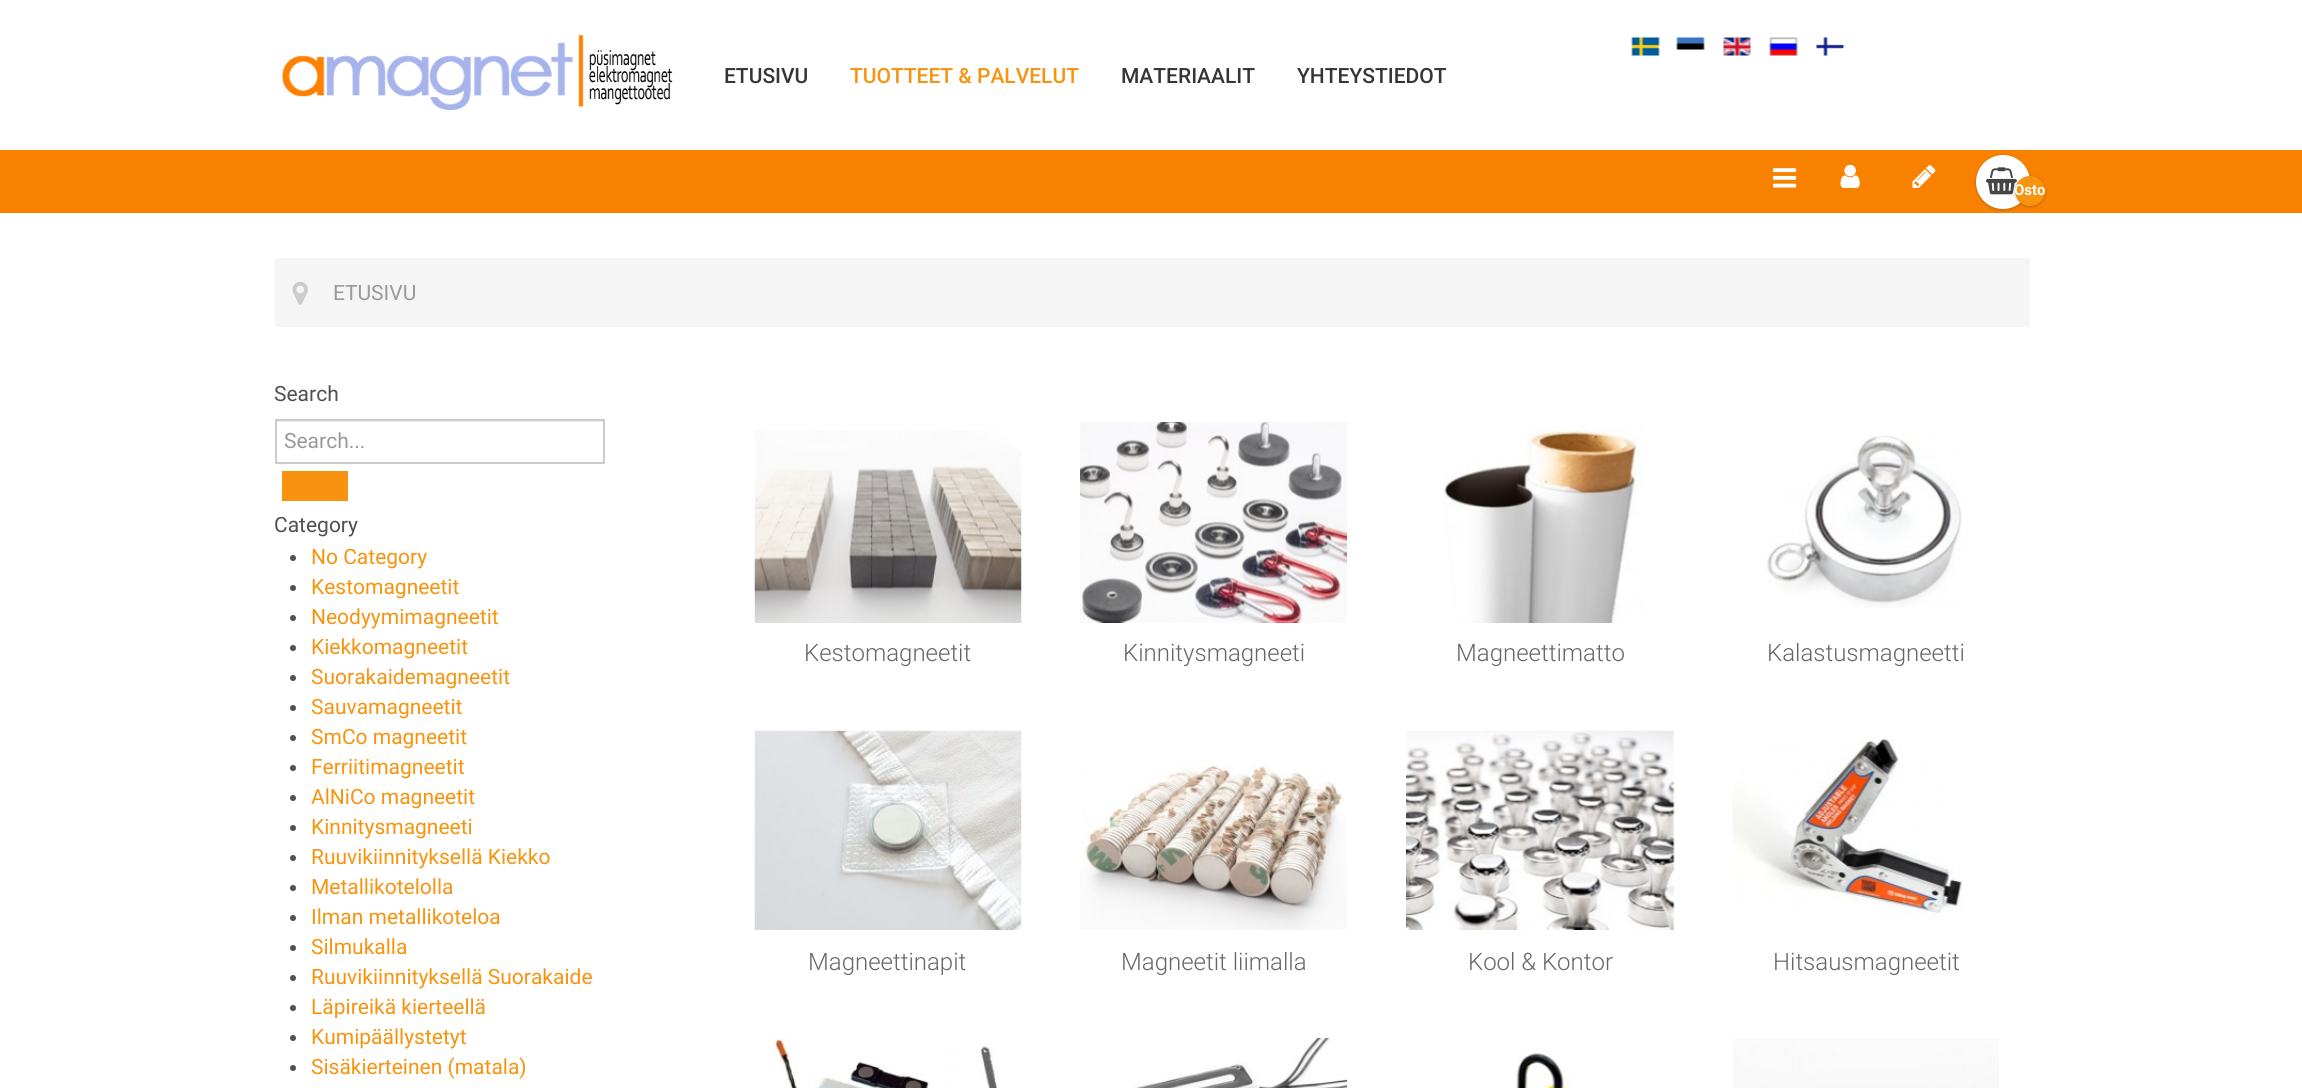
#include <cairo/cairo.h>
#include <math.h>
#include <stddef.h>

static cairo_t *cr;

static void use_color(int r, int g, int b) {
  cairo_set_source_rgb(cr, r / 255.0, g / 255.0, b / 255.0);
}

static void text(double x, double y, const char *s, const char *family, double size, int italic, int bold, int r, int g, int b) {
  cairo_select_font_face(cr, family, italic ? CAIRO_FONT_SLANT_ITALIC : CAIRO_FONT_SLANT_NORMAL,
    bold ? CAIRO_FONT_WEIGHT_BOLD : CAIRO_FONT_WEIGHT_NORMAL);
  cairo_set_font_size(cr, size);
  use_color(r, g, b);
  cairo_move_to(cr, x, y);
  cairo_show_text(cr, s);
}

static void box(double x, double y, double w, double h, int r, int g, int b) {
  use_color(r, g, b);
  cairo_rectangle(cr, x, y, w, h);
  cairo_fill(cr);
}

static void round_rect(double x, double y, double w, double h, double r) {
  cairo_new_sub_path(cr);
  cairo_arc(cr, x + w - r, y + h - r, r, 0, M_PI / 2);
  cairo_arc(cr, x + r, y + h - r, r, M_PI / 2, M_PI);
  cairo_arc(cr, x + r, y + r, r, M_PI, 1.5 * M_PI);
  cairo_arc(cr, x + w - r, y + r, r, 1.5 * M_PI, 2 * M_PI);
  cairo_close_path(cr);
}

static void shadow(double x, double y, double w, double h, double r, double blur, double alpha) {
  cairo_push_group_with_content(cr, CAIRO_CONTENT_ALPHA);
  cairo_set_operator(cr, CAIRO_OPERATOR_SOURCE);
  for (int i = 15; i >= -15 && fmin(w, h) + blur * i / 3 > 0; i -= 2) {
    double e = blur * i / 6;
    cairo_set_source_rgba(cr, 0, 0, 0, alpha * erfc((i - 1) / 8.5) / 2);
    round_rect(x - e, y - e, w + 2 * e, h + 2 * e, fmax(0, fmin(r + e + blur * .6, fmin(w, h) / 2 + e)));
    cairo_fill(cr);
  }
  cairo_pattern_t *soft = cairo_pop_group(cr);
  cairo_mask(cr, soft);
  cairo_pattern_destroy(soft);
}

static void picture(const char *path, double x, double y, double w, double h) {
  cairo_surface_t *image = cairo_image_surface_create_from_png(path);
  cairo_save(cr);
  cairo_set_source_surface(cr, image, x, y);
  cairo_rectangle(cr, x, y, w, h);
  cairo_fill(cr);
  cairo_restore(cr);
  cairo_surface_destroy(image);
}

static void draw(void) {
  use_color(255, 255, 255);
  cairo_paint(cr);
  picture("img_01.png", 282, 34, 391, 76);
  picture("img_02.png", 1631, 37, 29, 19);
  picture("img_03.png", 1676, 37, 29, 13);
  picture("img_04.png", 1723, 37, 28, 19);
  picture("img_05.png", 1769, 37, 29, 19);
  picture("img_06.png", 1816, 37, 28, 19);
  box(0, 150, 2302, 63, 248, 129, 0);
  picture("img_07.png", 1773, 168, 24, 20);
  picture("img_08.png", 1840, 164, 20, 24);
  picture("img_09.png", 1912, 165, 24, 23);
  use_color(0, 0, 0);
  shadow(1976, 156, 54, 54, 27, 1.5, 0.22);
  use_color(255, 255, 255);
  cairo_arc(cr, 2003, 182, 27, 0, 2 * M_PI);
  cairo_fill(cr);
  picture("img_10.png", 1986, 167, 31, 28);
  use_color(0, 0, 0);
  shadow(2015, 177, 30, 30, 15, 1.5, 0.22);
  use_color(247, 147, 15);
  cairo_arc(cr, 2030, 191, 15, 0, 2 * M_PI);
  cairo_fill(cr);
  box(275, 258, 1755, 69, 245, 245, 245);
  picture("img_11.png", 292, 281, 16, 24);
  box(276, 421, 327, 1, 236, 236, 236);
  cairo_rectangle(cr, 276, 420, 328, 43);
  use_color(204, 204, 204);
  cairo_stroke(cr);
  box(282, 471, 66, 30, 247, 147, 15);
  use_color(80, 80, 80);
  cairo_arc(cr, 293, 558, 3, 0, 2 * M_PI);
  cairo_fill(cr);
  cairo_arc(cr, 293, 588, 3, 0, 2 * M_PI);
  cairo_fill(cr);
  cairo_arc(cr, 293, 618, 3, 0, 2 * M_PI);
  cairo_fill(cr);
  cairo_arc(cr, 293, 648, 3, 0, 2 * M_PI);
  cairo_fill(cr);
  cairo_arc(cr, 293, 678, 3, 0, 2 * M_PI);
  cairo_fill(cr);
  cairo_arc(cr, 293, 708, 3, 0, 2 * M_PI);
  cairo_fill(cr);
  cairo_arc(cr, 293, 738, 3, 0, 2 * M_PI);
  cairo_fill(cr);
  cairo_arc(cr, 293, 768, 3, 0, 2 * M_PI);
  cairo_fill(cr);
  cairo_arc(cr, 293, 798, 3, 0, 2 * M_PI);
  cairo_fill(cr);
  cairo_arc(cr, 293, 828, 3, 0, 2 * M_PI);
  cairo_fill(cr);
  cairo_arc(cr, 293, 858, 3, 0, 2 * M_PI);
  cairo_fill(cr);
  cairo_arc(cr, 293, 888, 3, 0, 2 * M_PI);
  cairo_fill(cr);
  cairo_arc(cr, 293, 918, 3, 0, 2 * M_PI);
  cairo_fill(cr);
  cairo_arc(cr, 293, 948, 3, 0, 2 * M_PI);
  cairo_fill(cr);
  cairo_arc(cr, 293, 978, 3, 0, 2 * M_PI);
  cairo_fill(cr);
  cairo_arc(cr, 293, 1008, 3, 0, 2 * M_PI);
  cairo_fill(cr);
  cairo_arc(cr, 293, 1038, 3, 0, 2 * M_PI);
  cairo_fill(cr);
  cairo_arc(cr, 293, 1068, 3, 0, 2 * M_PI);
  cairo_fill(cr);
  picture("img_12.png", 754, 430, 268, 193);
  picture("img_13.png", 1080, 422, 267, 201);
  picture("img_14.png", 1443, 422, 203, 201);
  picture("img_15.png", 1767, 435, 195, 173);
  picture("img_16.png", 754, 730, 268, 200);
  picture("img_17.png", 1080, 765, 267, 165);
  picture("img_18.png", 1406, 730, 269, 200);
  picture("img_19.png", 1732, 739, 231, 179);
  picture("img_20.png", 771, 1038, 227, 50);
  picture("img_21.png", 1133, 1038, 214, 50);
  picture("img_22.png", 1516, 1053, 59, 35);
  picture("img_23.png", 1733, 1038, 266, 50);
  text(724, 83, "ETUSIVU", "Roboto Medium", 21, 0, 0, 53, 53, 53);
  text(850, 83, "TUOTTEET & PALVELUT", "Roboto Medium", 21, 0, 0, 247, 147, 15);
  text(1121, 83, "MATERIAALIT", "Roboto Medium", 21, 0, 0, 53, 53, 53);
  text(1297, 83, "YHTEYSTIEDOT", "Roboto Medium", 21, 0, 0, 53, 53, 53);
  cairo_save(cr);
  round_rect(2015, 176, 30, 30, 15);
  cairo_clip(cr);
  text(2014, 195, "Osto", "Roboto", 15, 0, 1, 255, 255, 255);
  cairo_restore(cr);
  text(333, 300, "ETUSIVU", "Roboto", 21, 0, 0, 153, 153, 153);
  text(274, 401, "Search", "Roboto", 21, 0, 0, 80, 80, 80);
  text(284, 448, "Search...", "Roboto", 21, 0, 0, 153, 153, 153);
  text(274, 532, "Category", "Roboto", 21, 0, 0, 80, 80, 80);
  text(311, 564, "No Category", "Roboto", 21, 0, 0, 247, 147, 15);
  text(311, 594, "Kestomagneetit", "Roboto", 21, 0, 0, 247, 147, 15);
  text(311, 624, "Neodyymimagneetit", "Roboto", 21, 0, 0, 247, 147, 15);
  text(311, 654, "Kiekkomagneetit", "Roboto", 21, 0, 0, 247, 147, 15);
  text(311, 684, "Suorakaidemagneetit", "Roboto", 21, 0, 0, 247, 147, 15);
  text(311, 714, "Sauvamagneetit", "Roboto", 21, 0, 0, 247, 147, 15);
  text(311, 744, "SmCo magneetit", "Roboto", 21, 0, 0, 247, 147, 15);
  text(311, 774, "Ferriitimagneetit", "Roboto", 21, 0, 0, 247, 147, 15);
  text(311, 804, "AlNiCo magneetit", "Roboto", 21, 0, 0, 247, 147, 15);
  text(311, 834, "Kinnitysmagneeti", "Roboto", 21, 0, 0, 247, 147, 15);
  text(311, 864, "Ruuvikiinnityksellä Kiekko", "Roboto", 21, 0, 0, 247, 147, 15);
  text(311, 894, "Metallikotelolla", "Roboto", 21, 0, 0, 247, 147, 15);
  text(311, 924, "Ilman metallikoteloa", "Roboto", 21, 0, 0, 247, 147, 15);
  text(311, 954, "Silmukalla", "Roboto", 21, 0, 0, 247, 147, 15);
  text(311, 984, "Ruuvikiinnityksellä Suorakaide", "Roboto", 21, 0, 0, 247, 147, 15);
  text(311, 1014, "Läpireikä kierteellä", "Roboto", 21, 0, 0, 247, 147, 15);
  text(311, 1044, "Kumipäällystetyt", "Roboto", 21, 0, 0, 247, 147, 15);
  text(311, 1074, "Sisäkierteinen (matala)", "Roboto", 21, 0, 0, 247, 147, 15);
  text(804, 661, "Kestomagneetit", "Roboto Light", 24, 0, 0, 102, 102, 102);
  text(1123, 661, "Kinnitysmagneeti", "Roboto Light", 24, 0, 0, 102, 102, 102);
  text(1456, 661, "Magneettimatto", "Roboto Light", 24, 0, 0, 102, 102, 102);
  text(1767, 661, "Kalastusmagneetti", "Roboto Light", 24, 0, 0, 102, 102, 102);
  text(808, 970, "Magneettinapit", "Roboto Light", 24, 0, 0, 102, 102, 102);
  text(1121, 970, "Magneetit liimalla", "Roboto Light", 24, 0, 0, 102, 102, 102);
  text(1468, 970, "Kool & Kontor", "Roboto Light", 24, 0, 0, 102, 102, 102);
  text(1773, 970, "Hitsausmagneetit", "Roboto Light", 24, 0, 0, 102, 102, 102);
}

int main(void) {
  cairo_surface_t *surface = cairo_image_surface_create(CAIRO_FORMAT_RGB24, 2302, 1088);
  cr = cairo_create(surface);
  cairo_font_options_t *options = cairo_font_options_create();
  cairo_font_options_set_hint_metrics(options, CAIRO_HINT_METRICS_OFF);
  cairo_font_options_set_hint_style(options, CAIRO_HINT_STYLE_NONE);
  cairo_set_font_options(cr, options);
  cairo_set_miter_limit(cr, 4);
  draw();
  cairo_surface_write_to_png(surface, "out.png");
  cairo_font_options_destroy(options);
  cairo_destroy(cr);
  cairo_surface_destroy(surface);
  return 0;
}
